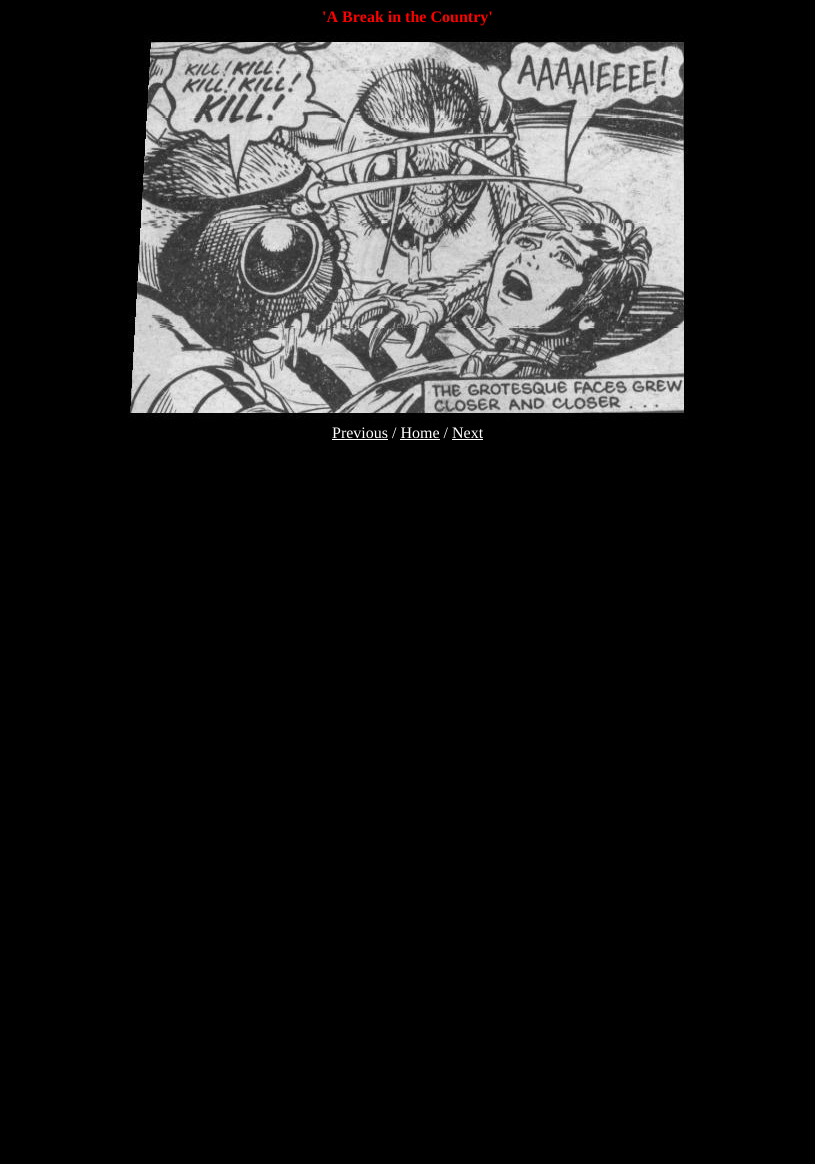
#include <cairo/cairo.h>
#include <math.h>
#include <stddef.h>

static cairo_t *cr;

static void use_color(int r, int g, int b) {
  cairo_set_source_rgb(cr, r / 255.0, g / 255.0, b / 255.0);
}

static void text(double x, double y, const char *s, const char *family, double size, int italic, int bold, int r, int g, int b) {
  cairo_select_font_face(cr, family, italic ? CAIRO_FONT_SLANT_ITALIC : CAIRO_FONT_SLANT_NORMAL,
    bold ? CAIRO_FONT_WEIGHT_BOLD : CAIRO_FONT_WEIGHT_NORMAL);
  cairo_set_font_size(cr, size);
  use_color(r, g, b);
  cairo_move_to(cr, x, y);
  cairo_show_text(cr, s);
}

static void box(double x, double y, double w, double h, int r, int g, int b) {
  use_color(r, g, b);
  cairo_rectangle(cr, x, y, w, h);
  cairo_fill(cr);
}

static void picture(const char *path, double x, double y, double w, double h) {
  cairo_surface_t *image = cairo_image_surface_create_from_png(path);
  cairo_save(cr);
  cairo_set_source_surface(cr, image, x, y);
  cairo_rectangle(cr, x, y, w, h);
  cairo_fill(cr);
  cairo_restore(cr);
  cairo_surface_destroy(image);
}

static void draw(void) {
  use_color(0, 0, 0);
  cairo_paint(cr);
  picture("img_01.png", 128, 35, 560, 384);
  box(332, 439, 56, 1, 255, 255, 255);
  box(400, 439, 40, 1, 255, 255, 255);
  box(452, 439, 31, 1, 255, 255, 255);
  text(322, 22, "'A Break in the Country'", "Liberation Serif", 16, 0, 1, 255, 0, 0);
  text(332, 438, "Previous / Home / Next", "Liberation Serif", 16, 0, 0, 255, 255, 255);
}

int main(void) {
  cairo_surface_t *surface = cairo_image_surface_create(CAIRO_FORMAT_RGB24, 815, 1164);
  cr = cairo_create(surface);
  cairo_font_options_t *options = cairo_font_options_create();
  cairo_font_options_set_hint_metrics(options, CAIRO_HINT_METRICS_OFF);
  cairo_font_options_set_hint_style(options, CAIRO_HINT_STYLE_NONE);
  cairo_set_font_options(cr, options);
  cairo_set_miter_limit(cr, 4);
  draw();
  cairo_surface_write_to_png(surface, "out.png");
  cairo_font_options_destroy(options);
  cairo_destroy(cr);
  cairo_surface_destroy(surface);
  return 0;
}
